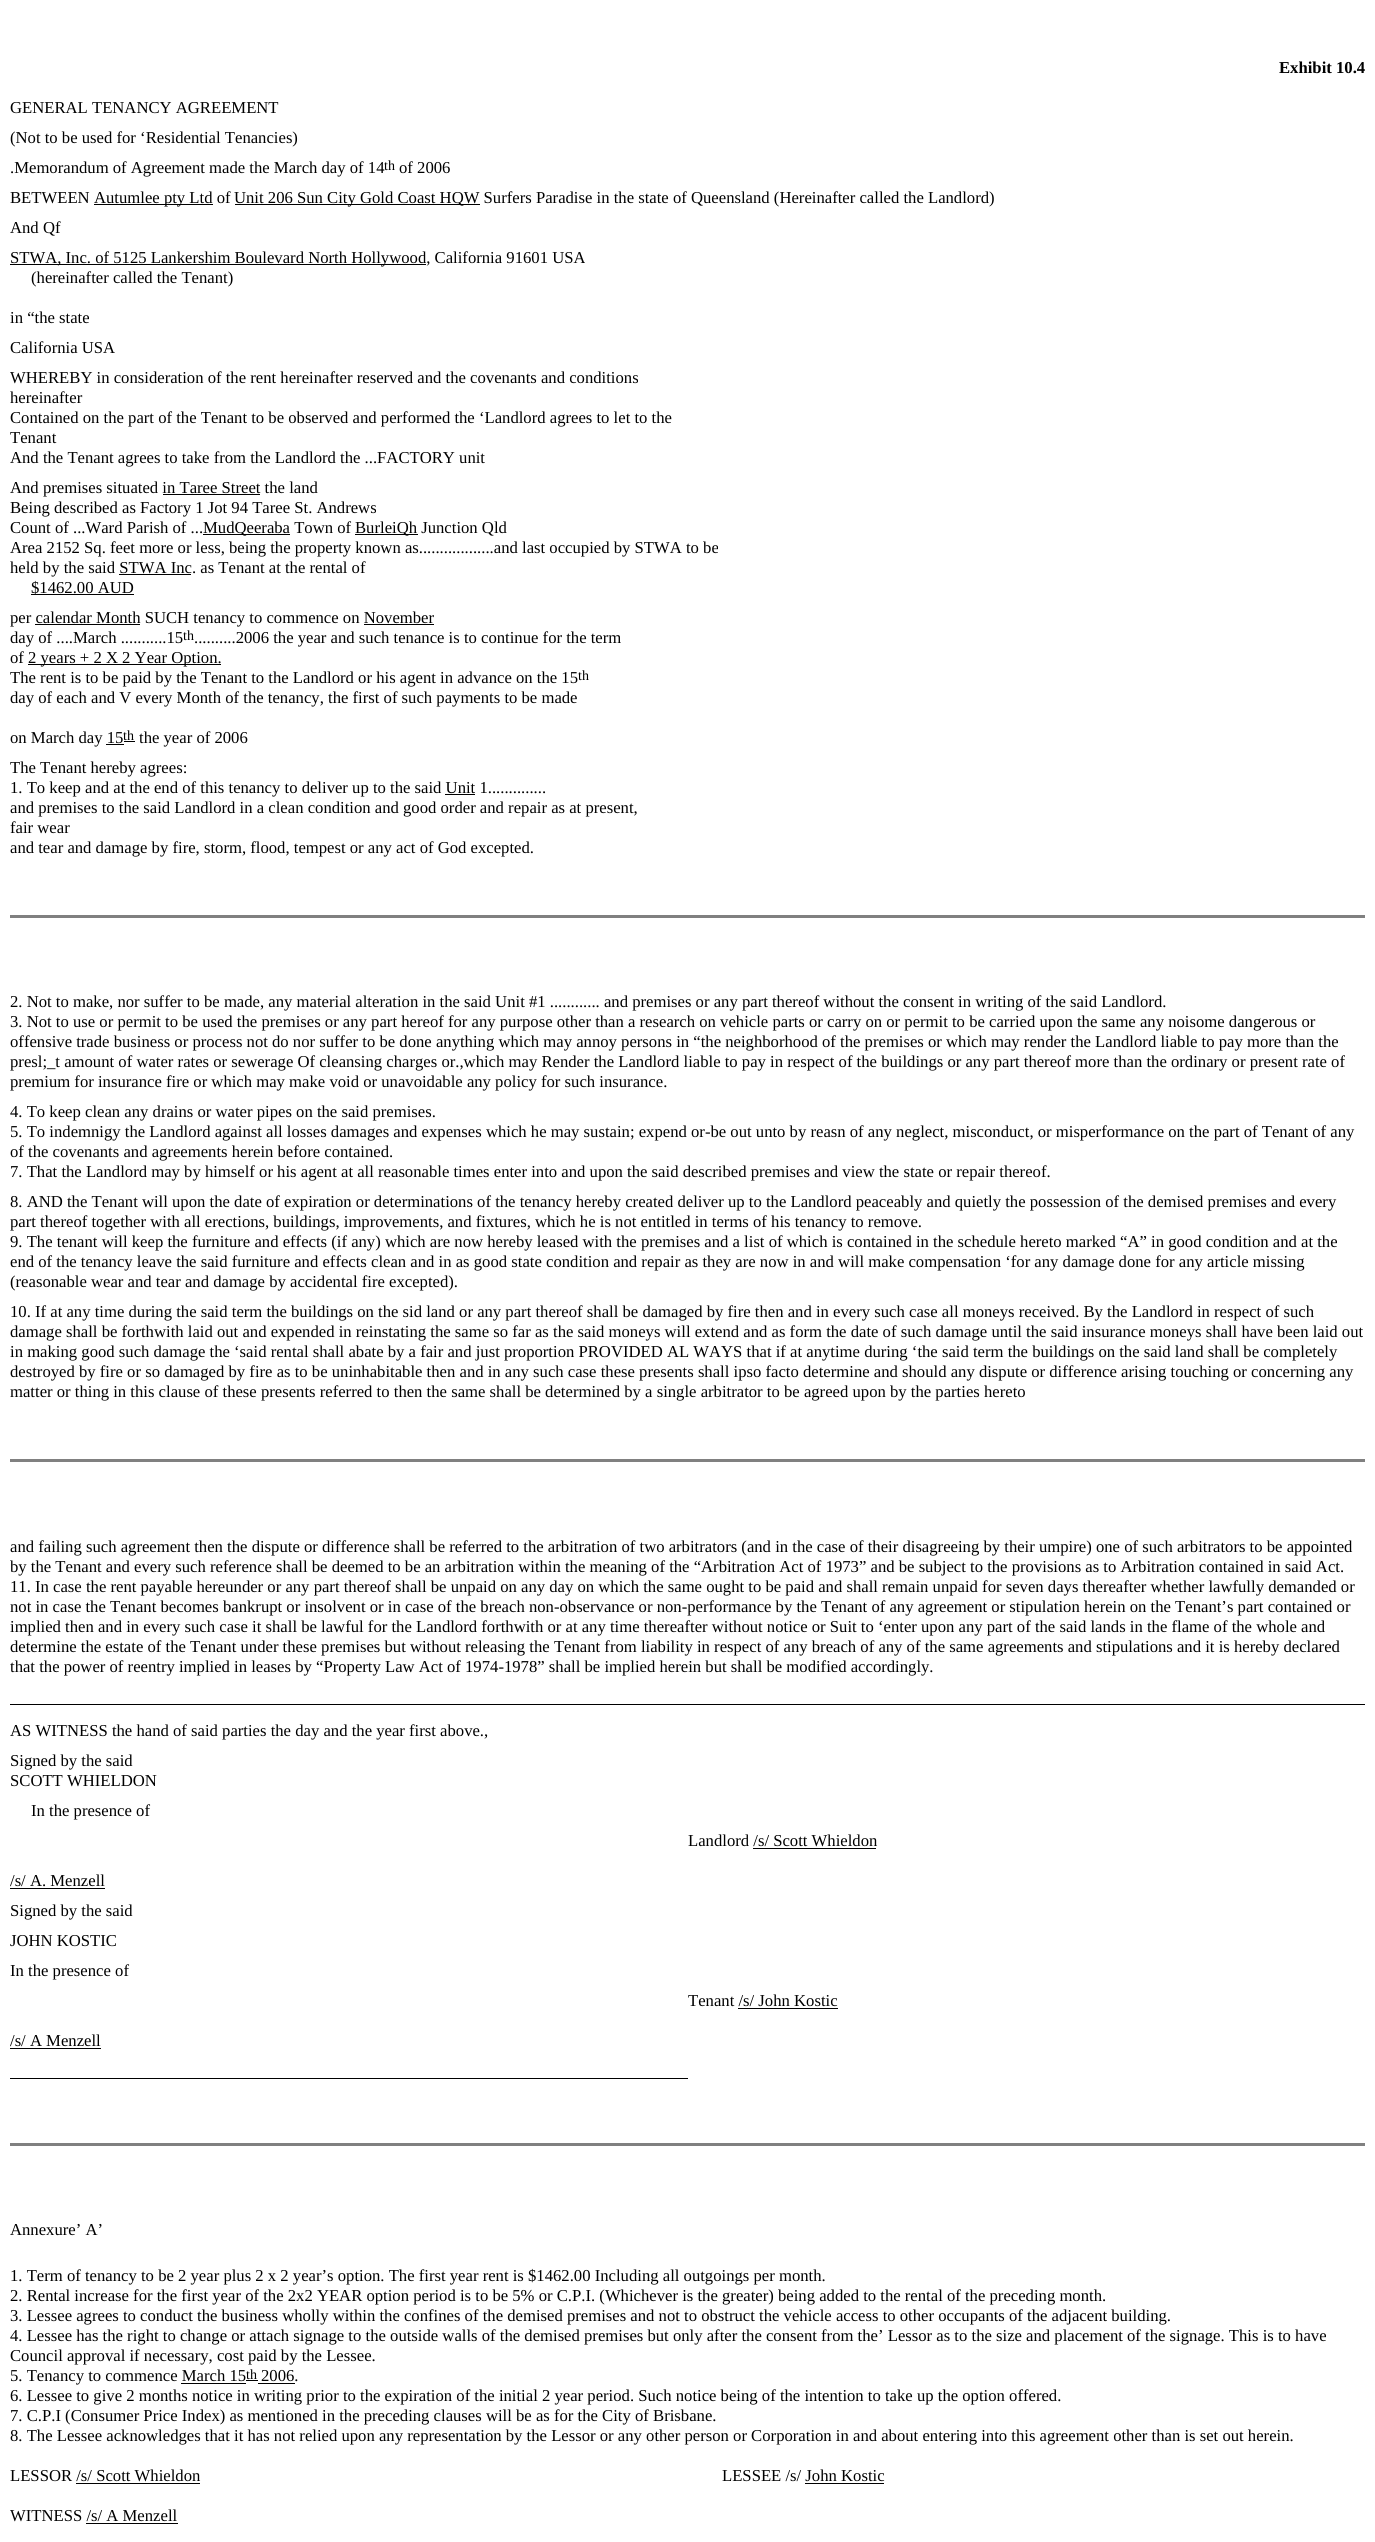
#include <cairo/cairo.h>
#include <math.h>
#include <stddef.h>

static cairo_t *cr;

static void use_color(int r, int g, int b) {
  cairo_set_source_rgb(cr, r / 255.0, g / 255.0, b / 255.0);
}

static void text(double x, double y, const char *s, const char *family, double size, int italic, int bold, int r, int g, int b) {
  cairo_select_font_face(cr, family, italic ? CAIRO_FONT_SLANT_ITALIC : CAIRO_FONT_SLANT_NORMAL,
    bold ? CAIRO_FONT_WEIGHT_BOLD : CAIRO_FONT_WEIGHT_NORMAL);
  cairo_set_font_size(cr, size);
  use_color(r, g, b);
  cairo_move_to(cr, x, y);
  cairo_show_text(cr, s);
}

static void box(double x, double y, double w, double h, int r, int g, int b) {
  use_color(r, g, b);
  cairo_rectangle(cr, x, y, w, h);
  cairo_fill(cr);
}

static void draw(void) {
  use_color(255, 255, 255);
  cairo_paint(cr);
  box(94, 204, 119, 1, 0, 0, 0);
  box(235, 204, 245, 1, 0, 0, 0);
  box(10, 264, 416, 1, 0, 0, 0);
  box(163, 494, 97, 1, 0, 0, 0);
  box(203, 534, 87, 1, 0, 0, 0);
  box(355, 534, 63, 1, 0, 0, 0);
  box(119, 574, 72, 1, 0, 0, 0);
  box(31, 594, 103, 1, 0, 0, 0);
  box(35, 624, 105, 1, 0, 0, 0);
  box(364, 624, 70, 1, 0, 0, 0);
  box(28, 664, 193, 1, 0, 0, 0);
  box(106, 744, 18, 1, 0, 0, 0);
  box(124, 741, 11, 1, 0, 0, 0);
  box(445, 794, 30, 1, 0, 0, 0);
  box(10, 915, 1355, 3, 128, 128, 128);
  box(10, 1459, 1355, 3, 128, 128, 128);
  box(10, 1704, 1355, 1, 0, 0, 0);
  box(753, 1848, 123, 1, 0, 0, 0);
  box(10, 1888, 95, 1, 0, 0, 0);
  box(738, 2008, 100, 1, 0, 0, 0);
  box(10, 2048, 91, 1, 0, 0, 0);
  box(10, 2078, 678, 1, 0, 0, 0);
  box(10, 2143, 1355, 3, 128, 128, 128);
  box(181, 2383, 65, 1, 0, 0, 0);
  box(246, 2380, 12, 1, 0, 0, 0);
  box(258, 2383, 37, 1, 0, 0, 0);
  box(76, 2483, 124, 1, 0, 0, 0);
  box(805, 2483, 79, 1, 0, 0, 0);
  box(86, 2523, 92, 1, 0, 0, 0);
  text(1279, 73, "Exhibit 10.4", "Liberation Serif", 16.67, 0, 1, 0, 0, 0);
  text(10, 113, "GENERAL TENANCY AGREEMENT", "Liberation Serif", 16.67, 0, 0, 0, 0, 0);
  text(10, 143, "(Not to be used for ‘Residential Tenancies)", "Liberation Serif", 16.67, 0, 0, 0, 0, 0);
  text(10, 173, ".Memorandum of Agreement made the March day of 14", "Liberation Serif", 16.67, 0, 0, 0, 0, 0);
  text(384, 170, "th", "Liberation Serif", 14, 0, 0, 0, 0, 0);
  text(399, 173, "of 2006", "Liberation Serif", 16.67, 0, 0, 0, 0, 0);
  text(10, 203, "BETWEEN", "Liberation Serif", 16.67, 0, 0, 0, 0, 0);
  text(94, 203, "Autumlee pty Ltd of", "Liberation Serif", 16.67, 0, 0, 0, 0, 0);
  text(234, 203, "Unit 206 Sun City Gold Coast HQW Surfers Paradise in the state of Queensland (Hereinafter called the Landlord)", "Liberation Serif", 16.67, 0, 0, 0, 0, 0);
  text(10, 233, "And Qf", "Liberation Serif", 16.67, 0, 0, 0, 0, 0);
  text(10, 263, "STWA, Inc. of 5125 Lankershim Boulevard North Hollywood, California 91601 USA", "Liberation Serif", 16.67, 0, 0, 0, 0, 0);
  text(31, 283, "(hereinafter called the Tenant)", "Liberation Serif", 16.67, 0, 0, 0, 0, 0);
  text(10, 323, "in “the state", "Liberation Serif", 16.67, 0, 0, 0, 0, 0);
  text(10, 353, "California USA", "Liberation Serif", 16.67, 0, 0, 0, 0, 0);
  text(10, 383, "WHEREBY in consideration of the rent hereinafter reserved and the covenants and conditions", "Liberation Serif", 16.67, 0, 0, 0, 0, 0);
  text(10, 403, "hereinafter", "Liberation Serif", 16.67, 0, 0, 0, 0, 0);
  text(10, 423, "Contained on the part of the Tenant to be observed and performed the ‘Landlord agrees to let to the", "Liberation Serif", 16.67, 0, 0, 0, 0, 0);
  text(10, 443, "Tenant", "Liberation Serif", 16.67, 0, 0, 0, 0, 0);
  text(10, 463, "And the Tenant agrees to take from the Landlord the ...FACTORY unit", "Liberation Serif", 16.67, 0, 0, 0, 0, 0);
  text(10, 493, "And premises situated in Taree Street the land", "Liberation Serif", 16.67, 0, 0, 0, 0, 0);
  text(10, 513, "Being described as Factory 1 Jot 94 Taree St. Andrews", "Liberation Serif", 16.67, 0, 0, 0, 0, 0);
  text(10, 533, "Count of ...Ward Parish of ...", "Liberation Serif", 16.67, 0, 0, 0, 0, 0);
  text(203, 533, "MudQeeraba Town of", "Liberation Serif", 16.67, 0, 0, 0, 0, 0);
  text(355, 533, "BurleiQh Junction Qld", "Liberation Serif", 16.67, 0, 0, 0, 0, 0);
  text(10, 553, "Area 2152 Sq. feet more or less, being the property known as..................and last occupied by STWA to be", "Liberation Serif", 16.67, 0, 0, 0, 0, 0);
  text(10, 573, "held by the said STWA Inc. as Tenant at the rental of", "Liberation Serif", 16.67, 0, 0, 0, 0, 0);
  text(31, 593, "$1462.00 AUD", "Liberation Serif", 16.67, 0, 0, 0, 0, 0);
  text(10, 623, "per calendar Month SUCH tenancy to commence on November", "Liberation Serif", 16.67, 0, 0, 0, 0, 0);
  text(10, 643, "day of ....March ...........15", "Liberation Serif", 16.67, 0, 0, 0, 0, 0);
  text(183, 640, "th", "Liberation Serif", 14, 0, 0, 0, 0, 0);
  text(194, 643, "..........2006 the year and such tenance is to continue for the term", "Liberation Serif", 16.67, 0, 0, 0, 0, 0);
  text(10, 663, "of", "Liberation Serif", 16.67, 0, 0, 0, 0, 0);
  text(28, 663, "2 years + 2 X 2 Year Option.", "Liberation Serif", 16.67, 0, 0, 0, 0, 0);
  text(10, 683, "The rent is to be paid by the Tenant to the Landlord or his agent in advance on the 15", "Liberation Serif", 16.67, 0, 0, 0, 0, 0);
  text(578, 680, "th", "Liberation Serif", 14, 0, 0, 0, 0, 0);
  text(10, 703, "day of each and V every Month of the tenancy, the first of such payments to be made", "Liberation Serif", 16.67, 0, 0, 0, 0, 0);
  text(10, 743, "on March day 15", "Liberation Serif", 16.67, 0, 0, 0, 0, 0);
  text(123, 740, "th", "Liberation Serif", 14, 0, 0, 0, 0, 0);
  text(139, 743, "the year of 2006", "Liberation Serif", 16.67, 0, 0, 0, 0, 0);
  text(10, 773, "The Tenant hereby agrees:", "Liberation Serif", 16.67, 0, 0, 0, 0, 0);
  text(10, 793, "1. To keep and at the end of this tenancy to deliver up to the said Unit 1..............", "Liberation Serif", 16.67, 0, 0, 0, 0, 0);
  text(10, 813, "and premises to the said Landlord in a clean condition and good order and repair as at present,", "Liberation Serif", 16.67, 0, 0, 0, 0, 0);
  text(10, 833, "fair wear", "Liberation Serif", 16.67, 0, 0, 0, 0, 0);
  text(10, 853, "and tear and damage by fire, storm, flood, tempest or any act of God excepted.", "Liberation Serif", 16.67, 0, 0, 0, 0, 0);
  text(10, 1007, "2. Not to make, nor suffer to be made, any material alteration in the said Unit #1 ............ and premises or any part thereof without the consent in writing of the said Landlord.", "Liberation Serif", 16.67, 0, 0, 0, 0, 0);
  text(10, 1027, "3. Not to use or permit to be used the premises or any part hereof for any purpose other than a research on vehicle parts or carry on or permit to be carried upon the same any noisome dangerous or", "Liberation Serif", 16.67, 0, 0, 0, 0, 0);
  text(10, 1047, "offensive trade business or process not do nor suffer to be done anything which may annoy persons in “the neighborhood of the premises or which may render the Landlord liable to pay more than the", "Liberation Serif", 16.67, 0, 0, 0, 0, 0);
  text(10, 1067, "presl;_t amount of water rates or sewerage Of cleansing charges or.,which may Render the Landlord liable to pay in respect of the buildings or any part thereof more than the ordinary or present rate of", "Liberation Serif", 16.67, 0, 0, 0, 0, 0);
  text(10, 1087, "premium for insurance fire or which may make void or unavoidable any policy for such insurance.", "Liberation Serif", 16.67, 0, 0, 0, 0, 0);
  text(10, 1117, "4. To keep clean any drains or water pipes on the said premises.", "Liberation Serif", 16.67, 0, 0, 0, 0, 0);
  text(10, 1137, "5. To indemnigy the Landlord against all losses damages and expenses which he may sustain; expend or-be out unto by reasn of any neglect, misconduct, or misperformance on the part of Tenant of any", "Liberation Serif", 16.67, 0, 0, 0, 0, 0);
  text(10, 1157, "of the covenants and agreements herein before contained.", "Liberation Serif", 16.67, 0, 0, 0, 0, 0);
  text(10, 1177, "7. That the Landlord may by himself or his agent at all reasonable times enter into and upon the said described premises and view the state or repair thereof.", "Liberation Serif", 16.67, 0, 0, 0, 0, 0);
  text(10, 1207, "8. AND the Tenant will upon the date of expiration or determinations of the tenancy hereby created deliver up to the Landlord peaceably and quietly the possession of the demised premises and every", "Liberation Serif", 16.67, 0, 0, 0, 0, 0);
  text(10, 1227, "part thereof together with all erections, buildings, improvements, and fixtures, which he is not entitled in terms of his tenancy to remove.", "Liberation Serif", 16.67, 0, 0, 0, 0, 0);
  text(10, 1247, "9. The tenant will keep the furniture and effects (if any) which are now hereby leased with the premises and a list of which is contained in the schedule hereto marked “A” in good condition and at the", "Liberation Serif", 16.67, 0, 0, 0, 0, 0);
  text(10, 1267, "end of the tenancy leave the said furniture and effects clean and in as good state condition and repair as they are now in and will make compensation ‘for any damage done for any article missing", "Liberation Serif", 16.67, 0, 0, 0, 0, 0);
  text(10, 1287, "(reasonable wear and tear and damage by accidental fire excepted).", "Liberation Serif", 16.67, 0, 0, 0, 0, 0);
  text(10, 1317, "10. If at any time during the said term the buildings on the sid land or any part thereof shall be damaged by fire then and in every such case all moneys received. By the Landlord in respect of such", "Liberation Serif", 16.67, 0, 0, 0, 0, 0);
  text(10, 1337, "damage shall be forthwith laid out and expended in reinstating the same so far as the said moneys will extend and as form the date of such damage until the said insurance moneys shall have been laid out", "Liberation Serif", 16.67, 0, 0, 0, 0, 0);
  text(10, 1357, "in making good such damage the ‘said rental shall abate by a fair and just proportion PROVIDED AL WAYS that if at anytime during ‘the said term the buildings on the said land shall be completely", "Liberation Serif", 16.67, 0, 0, 0, 0, 0);
  text(10, 1377, "destroyed by fire or so damaged by fire as to be uninhabitable then and in any such case these presents shall ipso facto determine and should any dispute or difference arising touching or concerning any", "Liberation Serif", 16.67, 0, 0, 0, 0, 0);
  text(10, 1397, "matter or thing in this clause of these presents referred to then the same shall be determined by a single arbitrator to be agreed upon by the parties hereto", "Liberation Serif", 16.67, 0, 0, 0, 0, 0);
  text(10, 1552, "and failing such agreement then the dispute or difference shall be referred to the arbitration of two arbitrators (and in the case of their disagreeing by their umpire) one of such arbitrators to be appointed", "Liberation Serif", 16.67, 0, 0, 0, 0, 0);
  text(10, 1572, "by the Tenant and every such reference shall be deemed to be an arbitration within the meaning of the “Arbitration Act of 1973” and be subject to the provisions as to Arbitration contained in said Act.", "Liberation Serif", 16.67, 0, 0, 0, 0, 0);
  text(10, 1592, "11. In case the rent payable hereunder or any part thereof shall be unpaid on any day on which the same ought to be paid and shall remain unpaid for seven days thereafter whether lawfully demanded or", "Liberation Serif", 16.67, 0, 0, 0, 0, 0);
  text(10, 1612, "not in case the Tenant becomes bankrupt or insolvent or in case of the breach non-observance or non-performance by the Tenant of any agreement or stipulation herein on the Tenant’s part contained or", "Liberation Serif", 16.67, 0, 0, 0, 0, 0);
  text(10, 1632, "implied then and in every such case it shall be lawful for the Landlord forthwith or at any time thereafter without notice or Suit to ‘enter upon any part of the said lands in the flame of the whole and", "Liberation Serif", 16.67, 0, 0, 0, 0, 0);
  text(10, 1652, "determine the estate of the Tenant under these premises but without releasing the Tenant from liability in respect of any breach of any of the same agreements and stipulations and it is hereby declared", "Liberation Serif", 16.67, 0, 0, 0, 0, 0);
  text(10, 1672, "that the power of reentry implied in leases by “Property Law Act of 1974-1978” shall be implied herein but shall be modified accordingly.", "Liberation Serif", 16.67, 0, 0, 0, 0, 0);
  text(10, 1736, "AS WITNESS the hand of said parties the day and the year first above.,", "Liberation Serif", 16.67, 0, 0, 0, 0, 0);
  text(10, 1766, "Signed by the said", "Liberation Serif", 16.67, 0, 0, 0, 0, 0);
  text(10, 1786, "SCOTT WHIELDON", "Liberation Serif", 16.67, 0, 0, 0, 0, 0);
  text(31, 1816, "In the presence of", "Liberation Serif", 16.67, 0, 0, 0, 0, 0);
  text(688, 1846, "Landlord /s/ Scott Whieldon", "Liberation Serif", 16.67, 0, 0, 0, 0, 0);
  text(10, 1886, "/s/ A. Menzell", "Liberation Serif", 16.67, 0, 0, 0, 0, 0);
  text(10, 1916, "Signed by the said", "Liberation Serif", 16.67, 0, 0, 0, 0, 0);
  text(10, 1946, "JOHN KOSTIC", "Liberation Serif", 16.67, 0, 0, 0, 0, 0);
  text(10, 1976, "In the presence of", "Liberation Serif", 16.67, 0, 0, 0, 0, 0);
  text(688, 2006, "Tenant /s/ John Kostic", "Liberation Serif", 16.67, 0, 0, 0, 0, 0);
  text(10, 2046, "/s/ A Menzell", "Liberation Serif", 16.67, 0, 0, 0, 0, 0);
  text(10, 2235, "Annexure’ A’", "Liberation Serif", 16.67, 0, 0, 0, 0, 0);
  text(10, 2281, "1. Term of tenancy to be 2 year plus 2 x 2 year’s option. The first year rent is $1462.00 Including all outgoings per month.", "Liberation Serif", 16.67, 0, 0, 0, 0, 0);
  text(10, 2301, "2. Rental increase for the first year of the 2x2 YEAR option period is to be 5% or C.P.I. (Whichever is the greater) being added to the rental of the preceding month.", "Liberation Serif", 16.67, 0, 0, 0, 0, 0);
  text(10, 2321, "3. Lessee agrees to conduct the business wholly within the confines of the demised premises and not to obstruct the vehicle access to other occupants of the adjacent building.", "Liberation Serif", 16.67, 0, 0, 0, 0, 0);
  text(10, 2341, "4. Lessee has the right to change or attach signage to the outside walls of the demised premises but only after the consent from the’ Lessor as to the size and placement of the signage. This is to have", "Liberation Serif", 16.67, 0, 0, 0, 0, 0);
  text(10, 2361, "Council approval if necessary, cost paid by the Lessee.", "Liberation Serif", 16.67, 0, 0, 0, 0, 0);
  text(10, 2381, "5. Tenancy to commence March 15", "Liberation Serif", 16.67, 0, 0, 0, 0, 0);
  text(246, 2379, "th", "Liberation Serif", 14, 0, 0, 0, 0, 0);
  text(261, 2381, "2006.", "Liberation Serif", 16.67, 0, 0, 0, 0, 0);
  text(10, 2401, "6. Lessee to give 2 months notice in writing prior to the expiration of the initial 2 year period. Such notice being of the intention to take up the option offered.", "Liberation Serif", 16.67, 0, 0, 0, 0, 0);
  text(10, 2421, "7. C.P.I (Consumer Price Index) as mentioned in the preceding clauses will be as for the City of Brisbane.", "Liberation Serif", 16.67, 0, 0, 0, 0, 0);
  text(10, 2441, "8. The Lessee acknowledges that it has not relied upon any representation by the Lessor or any other person or Corporation in and about entering into this agreement other than is set out herein.", "Liberation Serif", 16.67, 0, 0, 0, 0, 0);
  text(10, 2481, "LESSOR /s/ Scott Whieldon", "Liberation Serif", 16.67, 0, 0, 0, 0, 0);
  text(722, 2481, "LESSEE /s/ John Kostic", "Liberation Serif", 16.67, 0, 0, 0, 0, 0);
  text(10, 2521, "WITNESS /s/ A Menzell", "Liberation Serif", 16.67, 0, 0, 0, 0, 0);
}

int main(void) {
  cairo_surface_t *surface = cairo_image_surface_create(CAIRO_FORMAT_RGB24, 1375, 2542);
  cr = cairo_create(surface);
  cairo_font_options_t *options = cairo_font_options_create();
  cairo_font_options_set_hint_metrics(options, CAIRO_HINT_METRICS_OFF);
  cairo_font_options_set_hint_style(options, CAIRO_HINT_STYLE_NONE);
  cairo_set_font_options(cr, options);
  cairo_set_miter_limit(cr, 4);
  draw();
  cairo_surface_write_to_png(surface, "out.png");
  cairo_font_options_destroy(options);
  cairo_destroy(cr);
  cairo_surface_destroy(surface);
  return 0;
}
